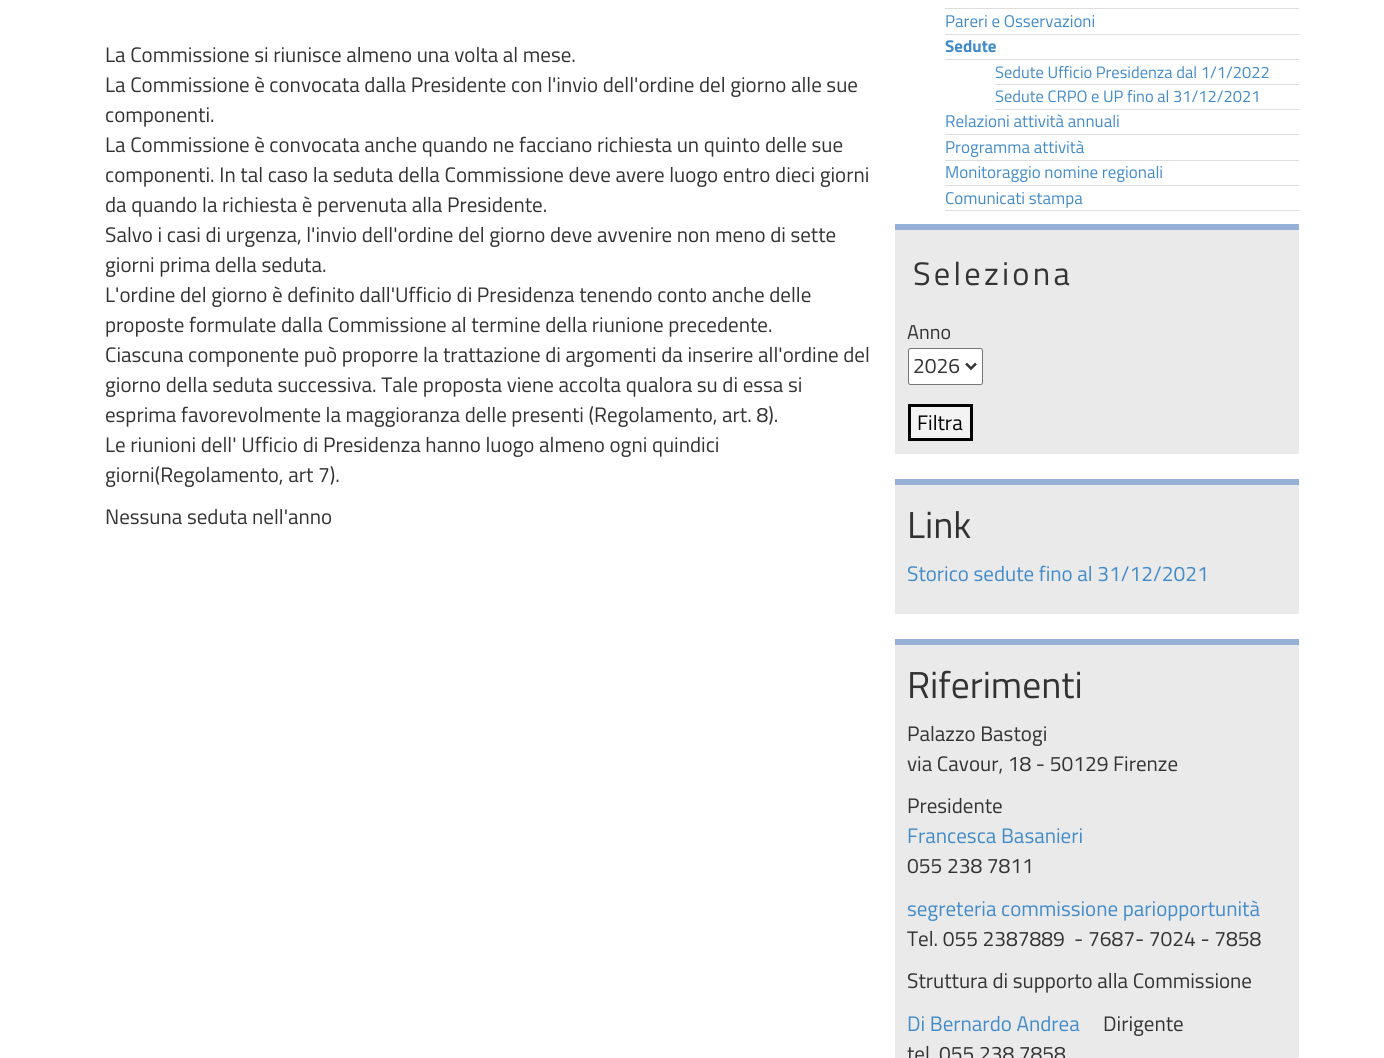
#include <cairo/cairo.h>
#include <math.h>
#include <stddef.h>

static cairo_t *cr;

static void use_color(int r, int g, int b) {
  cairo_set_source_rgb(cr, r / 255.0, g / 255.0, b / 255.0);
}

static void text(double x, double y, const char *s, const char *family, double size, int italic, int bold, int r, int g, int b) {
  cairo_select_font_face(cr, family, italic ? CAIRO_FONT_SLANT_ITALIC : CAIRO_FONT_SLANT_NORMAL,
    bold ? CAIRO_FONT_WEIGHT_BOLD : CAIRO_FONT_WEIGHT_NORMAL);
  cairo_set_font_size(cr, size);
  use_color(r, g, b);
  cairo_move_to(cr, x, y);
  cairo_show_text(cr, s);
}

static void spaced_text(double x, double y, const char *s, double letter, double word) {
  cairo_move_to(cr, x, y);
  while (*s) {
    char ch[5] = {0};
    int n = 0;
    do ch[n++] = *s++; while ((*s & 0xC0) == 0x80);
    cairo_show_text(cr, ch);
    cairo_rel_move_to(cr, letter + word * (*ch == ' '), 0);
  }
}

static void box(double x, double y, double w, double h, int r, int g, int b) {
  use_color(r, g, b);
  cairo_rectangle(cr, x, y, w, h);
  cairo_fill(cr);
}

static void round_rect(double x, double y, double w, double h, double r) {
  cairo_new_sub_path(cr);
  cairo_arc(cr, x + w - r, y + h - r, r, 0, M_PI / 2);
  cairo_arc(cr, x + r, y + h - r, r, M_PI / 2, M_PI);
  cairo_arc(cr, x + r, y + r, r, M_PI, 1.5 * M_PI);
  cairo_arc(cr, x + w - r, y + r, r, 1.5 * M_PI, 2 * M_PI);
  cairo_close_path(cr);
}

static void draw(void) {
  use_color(255, 255, 255);
  cairo_paint(cr);
  box(945, 8, 354, 1, 221, 221, 221);
  box(945, 34, 354, 1, 221, 221, 221);
  box(945, 59, 354, 1, 221, 221, 221);
  box(995, 84, 304, 1, 221, 221, 221);
  box(995, 109, 304, 1, 221, 221, 221);
  box(945, 134, 354, 1, 221, 221, 221);
  box(945, 160, 354, 1, 221, 221, 221);
  box(945, 185, 354, 1, 221, 221, 221);
  box(945, 210, 354, 1, 221, 221, 221);
  box(895, 230, 404, 224, 234, 234, 234);
  box(895, 224, 404, 6, 150, 176, 216);
  use_color(255, 255, 255);
  round_rect(908.5, 348.5, 74, 36, 2);
  cairo_fill_preserve(cr);
  use_color(118, 118, 118);
  cairo_set_line_width(cr, 1);
  cairo_stroke(cr);
  cairo_new_path(cr);
  cairo_move_to(cr, 966, 363.5);
  cairo_line_to(cr, 971, 368.5);
  cairo_line_to(cr, 976, 363.5);
  use_color(51, 51, 51);
  cairo_set_line_width(cr, 2.5);
  cairo_stroke(cr);
  use_color(242, 243, 242);
  cairo_rectangle(cr, 909.5, 405.5, 62, 34);
  cairo_fill_preserve(cr);
  use_color(0, 0, 0);
  cairo_set_line_width(cr, 3);
  cairo_stroke(cr);
  box(895, 485, 404, 129, 234, 234, 234);
  box(895, 479, 404, 6, 150, 176, 216);
  box(895, 645, 404, 413, 234, 234, 234);
  box(895, 639, 404, 6, 150, 176, 216);
  text(105, 62, "La Commissione si riunisce almeno una volta al mese.", "Titillium Web", 21, 0, 0, 51, 51, 51);
  text(105, 92, "La Commissione è convocata dalla Presidente con l'invio dell'ordine del giorno alle sue", "Titillium Web", 21, 0, 0, 51, 51, 51);
  text(105, 122, "componenti.", "Titillium Web", 21, 0, 0, 51, 51, 51);
  text(105, 152, "La Commissione è convocata anche quando ne facciano richiesta un quinto delle sue", "Titillium Web", 21, 0, 0, 51, 51, 51);
  text(105, 182, "componenti. In tal caso la seduta della Commissione deve avere luogo entro dieci giorni", "Titillium Web", 21, 0, 0, 51, 51, 51);
  text(105, 212, "da quando la richiesta è pervenuta alla Presidente.", "Titillium Web", 21, 0, 0, 51, 51, 51);
  text(105, 242, "Salvo i casi di urgenza, l'invio dell'ordine del giorno deve avvenire non meno di sette", "Titillium Web", 21, 0, 0, 51, 51, 51);
  text(105, 272, "giorni prima della seduta.", "Titillium Web", 21, 0, 0, 51, 51, 51);
  text(105, 302, "L'ordine del giorno è definito dall'Ufficio di Presidenza tenendo conto anche delle", "Titillium Web", 21, 0, 0, 51, 51, 51);
  text(105, 332, "proposte formulate dalla Commissione al termine della riunione precedente.", "Titillium Web", 21, 0, 0, 51, 51, 51);
  text(105, 362, "Ciascuna componente può proporre la trattazione di argomenti da inserire all'ordine del", "Titillium Web", 21, 0, 0, 51, 51, 51);
  text(105, 392, "giorno della seduta successiva. Tale proposta viene accolta qualora su di essa si", "Titillium Web", 21, 0, 0, 51, 51, 51);
  text(105, 422, "esprima favorevolmente la maggioranza delle presenti (Regolamento, art. 8).", "Titillium Web", 21, 0, 0, 51, 51, 51);
  text(105, 452, "Le riunioni dell' Ufficio di Presidenza hanno luogo almeno ogni quindici", "Titillium Web", 21, 0, 0, 51, 51, 51);
  text(105, 482, "giorni(Regolamento, art 7).", "Titillium Web", 21, 0, 0, 51, 51, 51);
  text(105, 524, "Nessuna seduta nell'anno", "Titillium Web", 21, 0, 0, 51, 51, 51);
  text(945, 27, "Pareri e Osservazioni", "Titillium Web", 17, 0, 0, 66, 139, 202);
  text(945, 52, "Sedute", "Titillium Web", 17, 0, 1, 66, 139, 202);
  text(995, 78, "Sedute Ufficio Presidenza dal 1/1/2022", "Titillium Web", 16.5, 0, 0, 66, 139, 202);
  text(995, 102, "Sedute CRPO e UP fino al 31/12/2021", "Titillium Web", 16.5, 0, 0, 66, 139, 202);
  text(945, 127, "Relazioni attività annuali", "Titillium Web", 17, 0, 0, 66, 139, 202);
  text(945, 153, "Programma attività", "Titillium Web", 17, 0, 0, 66, 139, 202);
  text(945, 178, "Monitoraggio nomine regionali", "Titillium Web", 17, 0, 0, 66, 139, 202);
  text(945, 204, "Comunicati stampa", "Titillium Web", 17, 0, 0, 66, 139, 202);
  cairo_set_font_size(cr, 32.5);
  use_color(51, 51, 51);
  spaced_text(913, 285, "Seleziona", 3.25, 0);
  text(907, 339, "Anno", "Titillium Web", 20, 0, 0, 51, 51, 51);
  text(913, 373, "2026", "Titillium Web", 21, 0, 0, 51, 51, 51);
  text(917, 430, "Filtra", "Titillium Web", 21, 0, 0, 0, 0, 0);
  text(907, 538, "Link", "Titillium Web", 37.5, 0, 0, 51, 51, 51);
  text(907, 581, "Storico sedute fino al 31/12/2021", "Titillium Web", 21, 0, 0, 66, 139, 202);
  text(907, 698, "Riferimenti", "Titillium Web", 37.5, 0, 0, 51, 51, 51);
  text(907, 741, "Palazzo Bastogi", "Titillium Web", 21, 0, 0, 51, 51, 51);
  text(907, 771, "via Cavour, 18 - 50129 Firenze", "Titillium Web", 21, 0, 0, 51, 51, 51);
  text(907, 813, "Presidente", "Titillium Web", 21, 0, 0, 51, 51, 51);
  text(907, 843, "Francesca Basanieri", "Titillium Web", 21, 0, 0, 66, 139, 202);
  text(907, 873, "055 238 7811", "Titillium Web", 21, 0, 0, 51, 51, 51);
  text(907, 916, "segreteria commissione pariopportunità", "Titillium Web", 21, 0, 0, 66, 139, 202);
  text(907, 946, "Tel. 055 2387889  - 7687- 7024 - 7858", "Titillium Web", 21, 0, 0, 51, 51, 51);
  text(907, 988, "Struttura di supporto alla Commissione", "Titillium Web", 21, 0, 0, 51, 51, 51);
  text(907, 1031, "Di Bernardo Andrea", "Titillium Web", 21, 0, 0, 66, 139, 202);
  text(1103, 1031, "Dirigente", "Titillium Web", 21, 0, 0, 51, 51, 51);
  text(907, 1061, "tel. 055 238 7858", "Titillium Web", 21, 0, 0, 51, 51, 51);
}

int main(void) {
  cairo_surface_t *surface = cairo_image_surface_create(CAIRO_FORMAT_RGB24, 1384, 1058);
  cr = cairo_create(surface);
  cairo_font_options_t *options = cairo_font_options_create();
  cairo_font_options_set_hint_metrics(options, CAIRO_HINT_METRICS_OFF);
  cairo_font_options_set_hint_style(options, CAIRO_HINT_STYLE_NONE);
  cairo_set_font_options(cr, options);
  cairo_set_miter_limit(cr, 4);
  draw();
  cairo_surface_write_to_png(surface, "out.png");
  cairo_font_options_destroy(options);
  cairo_destroy(cr);
  cairo_surface_destroy(surface);
  return 0;
}
